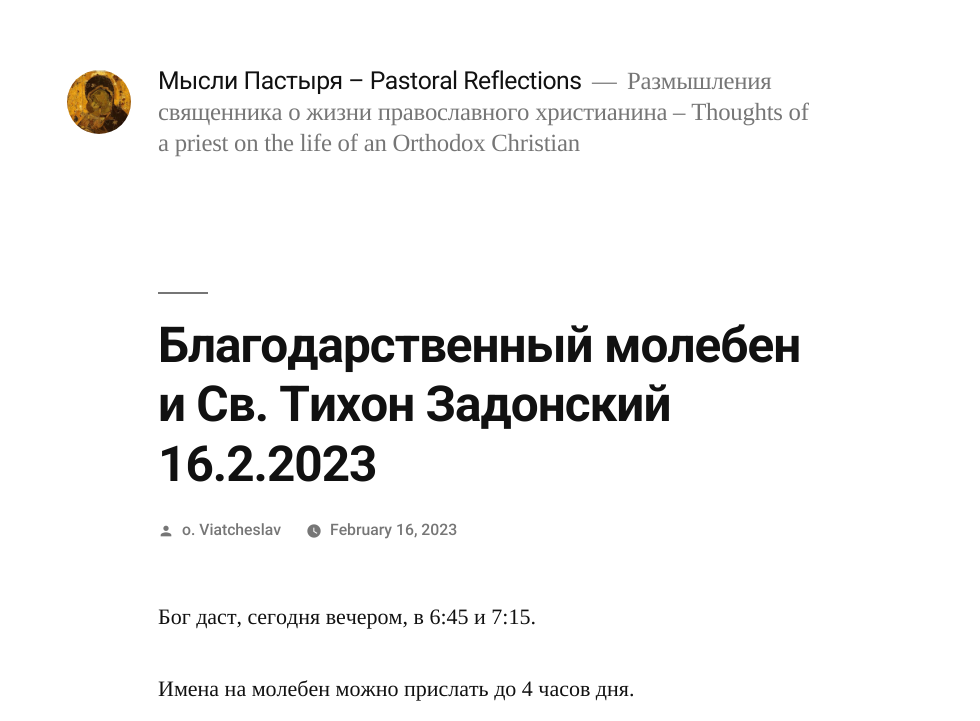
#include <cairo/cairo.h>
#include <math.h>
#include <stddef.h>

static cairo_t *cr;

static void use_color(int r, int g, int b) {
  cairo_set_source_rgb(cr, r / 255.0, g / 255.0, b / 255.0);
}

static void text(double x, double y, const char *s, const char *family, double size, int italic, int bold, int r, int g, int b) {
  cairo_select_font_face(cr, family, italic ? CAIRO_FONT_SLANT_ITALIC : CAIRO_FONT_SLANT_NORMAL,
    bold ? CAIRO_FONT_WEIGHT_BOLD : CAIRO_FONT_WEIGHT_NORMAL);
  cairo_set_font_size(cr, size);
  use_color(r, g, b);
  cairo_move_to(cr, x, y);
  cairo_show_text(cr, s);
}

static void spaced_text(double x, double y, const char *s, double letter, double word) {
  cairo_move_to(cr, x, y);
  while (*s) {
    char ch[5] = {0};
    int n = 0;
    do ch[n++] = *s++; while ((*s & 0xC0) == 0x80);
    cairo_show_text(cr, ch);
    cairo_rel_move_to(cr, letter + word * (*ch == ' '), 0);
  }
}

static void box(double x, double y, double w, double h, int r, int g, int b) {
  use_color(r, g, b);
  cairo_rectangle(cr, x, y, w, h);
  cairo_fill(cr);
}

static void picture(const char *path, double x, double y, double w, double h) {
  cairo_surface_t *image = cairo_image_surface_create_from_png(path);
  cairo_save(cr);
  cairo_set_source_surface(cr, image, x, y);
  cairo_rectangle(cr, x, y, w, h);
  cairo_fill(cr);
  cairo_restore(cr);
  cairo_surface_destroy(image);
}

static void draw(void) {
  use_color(255, 255, 255);
  cairo_paint(cr);
  picture("img_01.png", 67, 70, 64, 64);
  box(158, 292, 50, 2, 118, 118, 118);
  picture("img_02.png", 160, 525, 12, 12);
  picture("img_03.png", 307, 524, 14, 14);
  cairo_select_font_face(cr, "Roboto", CAIRO_FONT_SLANT_NORMAL, CAIRO_FONT_WEIGHT_NORMAL);
  cairo_set_font_size(cr, 24.75);
  use_color(17, 17, 17);
  spaced_text(158, 89, "Мысли Пастыря – Pastoral Reflections", -0.5, 0);
  cairo_select_font_face(cr, "Liberation Serif", CAIRO_FONT_SLANT_NORMAL, CAIRO_FONT_WEIGHT_NORMAL);
  use_color(118, 118, 118);
  spaced_text(592, 89, "—", -0.25, 0);
  spaced_text(627, 89, "Размышления", -0.25, 0);
  spaced_text(158, 120, "священника о жизни православного христианина – Thoughts of", -0.25, 0);
  spaced_text(158, 151, "a priest on the life of an Orthodox Christian", -0.25, 0);
  cairo_select_font_face(cr, "Roboto", CAIRO_FONT_SLANT_NORMAL, CAIRO_FONT_WEIGHT_BOLD);
  cairo_set_font_size(cr, 49.5);
  use_color(17, 17, 17);
  spaced_text(158, 362, "Благодарственный молебен", -1, 0);
  spaced_text(158, 421, "и Св. Тихон Задонский", -1, 0);
  spaced_text(158, 481, "16.2.2023", -1, 0);
  text(182, 535, "o. Viatcheslav", "Roboto Medium", 15.75, 0, 0, 118, 118, 118);
  text(330, 535, "February 16, 2023", "Roboto Medium", 15.75, 0, 0, 118, 118, 118);
  text(158, 624, "Бог даст, сегодня вечером, в 6:45 и 7:15.", "Liberation Serif", 22, 0, 0, 17, 17, 17);
  text(158, 696, "Имена на молебен можно прислать до 4 часов дня.", "Liberation Serif", 22, 0, 0, 17, 17, 17);
}

int main(void) {
  cairo_surface_t *surface = cairo_image_surface_create(CAIRO_FORMAT_RGB24, 980, 721);
  cr = cairo_create(surface);
  cairo_font_options_t *options = cairo_font_options_create();
  cairo_font_options_set_hint_metrics(options, CAIRO_HINT_METRICS_OFF);
  cairo_font_options_set_hint_style(options, CAIRO_HINT_STYLE_NONE);
  cairo_set_font_options(cr, options);
  cairo_set_miter_limit(cr, 4);
  draw();
  cairo_surface_write_to_png(surface, "out.png");
  cairo_font_options_destroy(options);
  cairo_destroy(cr);
  cairo_surface_destroy(surface);
  return 0;
}
